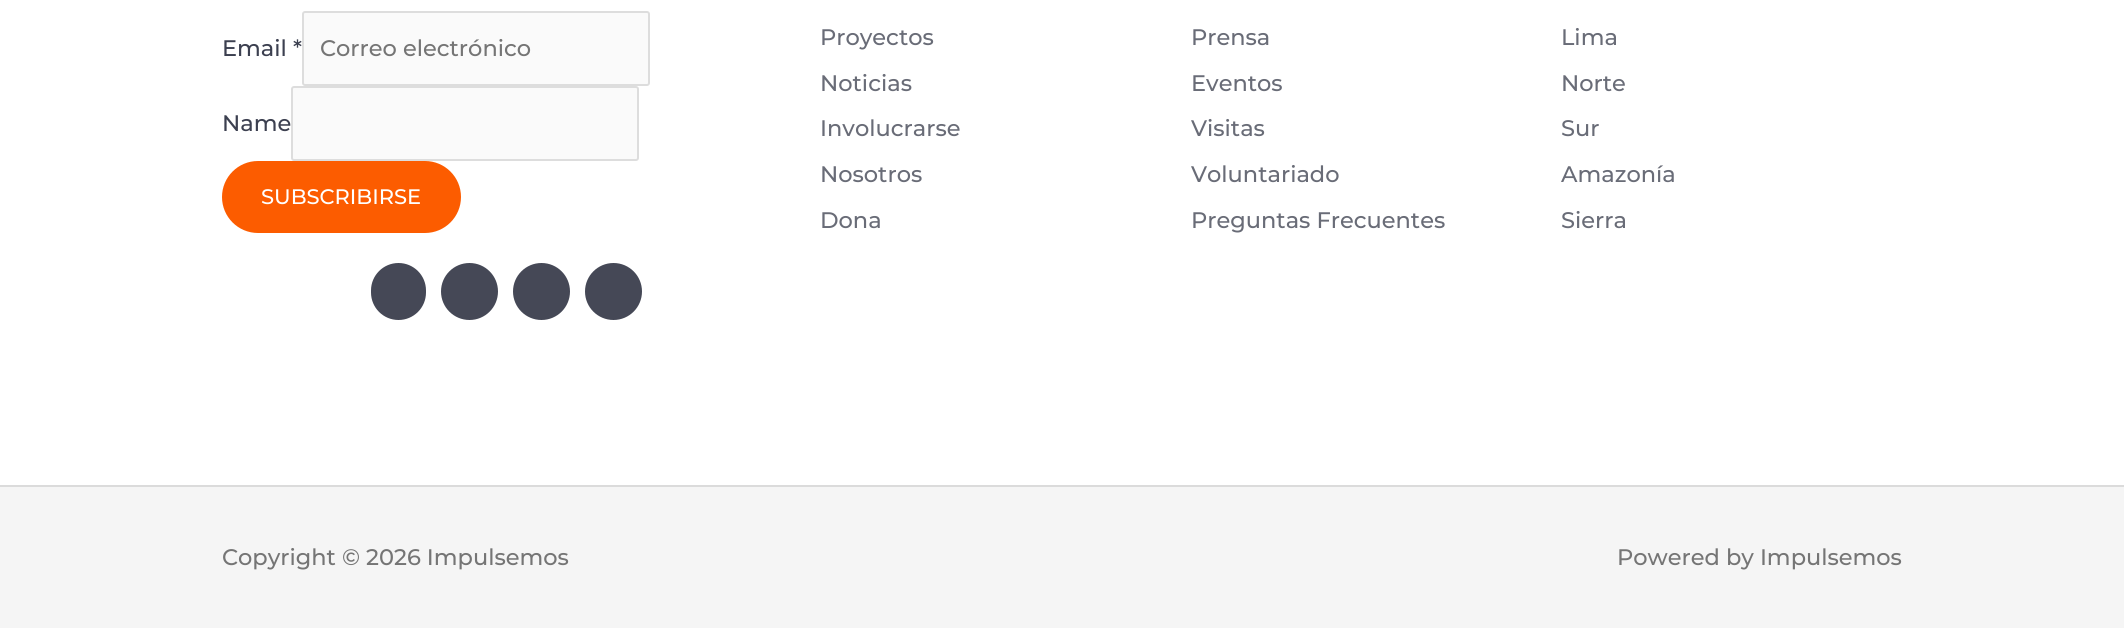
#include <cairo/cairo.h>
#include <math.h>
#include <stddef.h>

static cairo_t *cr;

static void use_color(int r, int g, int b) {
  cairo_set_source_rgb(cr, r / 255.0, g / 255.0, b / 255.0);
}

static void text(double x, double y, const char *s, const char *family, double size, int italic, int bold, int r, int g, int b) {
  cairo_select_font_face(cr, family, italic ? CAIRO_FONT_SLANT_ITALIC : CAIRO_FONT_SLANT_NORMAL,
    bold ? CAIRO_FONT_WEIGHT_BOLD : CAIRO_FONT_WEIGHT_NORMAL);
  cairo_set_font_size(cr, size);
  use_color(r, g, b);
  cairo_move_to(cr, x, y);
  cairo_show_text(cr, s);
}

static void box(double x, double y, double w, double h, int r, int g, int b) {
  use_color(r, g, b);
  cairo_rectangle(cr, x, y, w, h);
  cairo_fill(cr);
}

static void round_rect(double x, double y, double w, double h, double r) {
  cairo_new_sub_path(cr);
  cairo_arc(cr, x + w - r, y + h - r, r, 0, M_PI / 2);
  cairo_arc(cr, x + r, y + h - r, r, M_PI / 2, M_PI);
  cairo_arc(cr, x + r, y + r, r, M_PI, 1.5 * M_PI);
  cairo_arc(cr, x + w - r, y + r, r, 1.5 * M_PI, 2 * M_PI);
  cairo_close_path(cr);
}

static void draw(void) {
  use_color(245, 245, 245);
  cairo_paint(cr);
  box(0, 0, 2124, 485, 255, 255, 255);
  use_color(250, 250, 250);
  round_rect(303, 12, 346, 73, 2);
  cairo_fill_preserve(cr);
  use_color(221, 221, 221);
  cairo_stroke(cr);
  use_color(250, 250, 250);
  round_rect(292, 87, 346, 73, 2);
  cairo_fill_preserve(cr);
  use_color(221, 221, 221);
  cairo_stroke(cr);
  use_color(252, 92, 0);
  round_rect(222, 161, 239, 72, 36);
  cairo_fill(cr);
  use_color(69, 72, 86);
  round_rect(371, 263, 55, 57, 27.5);
  cairo_fill(cr);
  cairo_arc(cr, 469.5, 291.5, 28.5, 0, 2 * M_PI);
  cairo_fill(cr);
  cairo_arc(cr, 541.5, 291.5, 28.5, 0, 2 * M_PI);
  cairo_fill(cr);
  cairo_arc(cr, 613.5, 291.5, 28.5, 0, 2 * M_PI);
  cairo_fill(cr);
  box(0, 485, 2124, 2, 219, 219, 219);
  text(222, 56, "Email *", "Montserrat Medium", 22.5, 0, 0, 60, 64, 80);
  text(320, 56, "Correo electrónico", "Montserrat Medium", 22.5, 0, 0, 117, 117, 117);
  text(222, 131, "Name", "Montserrat Medium", 22.5, 0, 0, 60, 64, 80);
  text(261, 204, "SUBSCRIBIRSE", "Montserrat Medium", 21, 0, 0, 255, 255, 255);
  text(820, 45, "Proyectos", "Montserrat Medium", 22.5, 0, 0, 105, 108, 119);
  text(820, 91, "Noticias", "Montserrat Medium", 22.5, 0, 0, 105, 108, 119);
  text(820, 136, "Involucrarse", "Montserrat Medium", 22.5, 0, 0, 105, 108, 119);
  text(820, 182, "Nosotros", "Montserrat Medium", 22.5, 0, 0, 105, 108, 119);
  text(820, 228, "Dona", "Montserrat Medium", 22.5, 0, 0, 105, 108, 119);
  text(1191, 45, "Prensa", "Montserrat Medium", 22.5, 0, 0, 105, 108, 119);
  text(1191, 91, "Eventos", "Montserrat Medium", 22.5, 0, 0, 105, 108, 119);
  text(1191, 136, "Visitas", "Montserrat Medium", 22.5, 0, 0, 105, 108, 119);
  text(1191, 182, "Voluntariado", "Montserrat Medium", 22.5, 0, 0, 105, 108, 119);
  text(1191, 228, "Preguntas Frecuentes", "Montserrat Medium", 22.5, 0, 0, 105, 108, 119);
  text(1561, 45, "Lima", "Montserrat Medium", 22.5, 0, 0, 105, 108, 119);
  text(1561, 91, "Norte", "Montserrat Medium", 22.5, 0, 0, 105, 108, 119);
  text(1561, 136, "Sur", "Montserrat Medium", 22.5, 0, 0, 105, 108, 119);
  text(1561, 182, "Amazonía", "Montserrat Medium", 22.5, 0, 0, 105, 108, 119);
  text(1561, 228, "Sierra", "Montserrat Medium", 22.5, 0, 0, 105, 108, 119);
  text(222, 565, "Copyright © 2026 Impulsemos", "Montserrat Medium", 22.5, 0, 0, 117, 117, 117);
  text(1617, 565, "Powered by Impulsemos", "Montserrat Medium", 22.5, 0, 0, 117, 117, 117);
}

int main(void) {
  cairo_surface_t *surface = cairo_image_surface_create(CAIRO_FORMAT_RGB24, 2124, 628);
  cr = cairo_create(surface);
  cairo_font_options_t *options = cairo_font_options_create();
  cairo_font_options_set_hint_metrics(options, CAIRO_HINT_METRICS_OFF);
  cairo_font_options_set_hint_style(options, CAIRO_HINT_STYLE_NONE);
  cairo_set_font_options(cr, options);
  cairo_set_miter_limit(cr, 4);
  draw();
  cairo_surface_write_to_png(surface, "out.png");
  cairo_font_options_destroy(options);
  cairo_destroy(cr);
  cairo_surface_destroy(surface);
  return 0;
}
